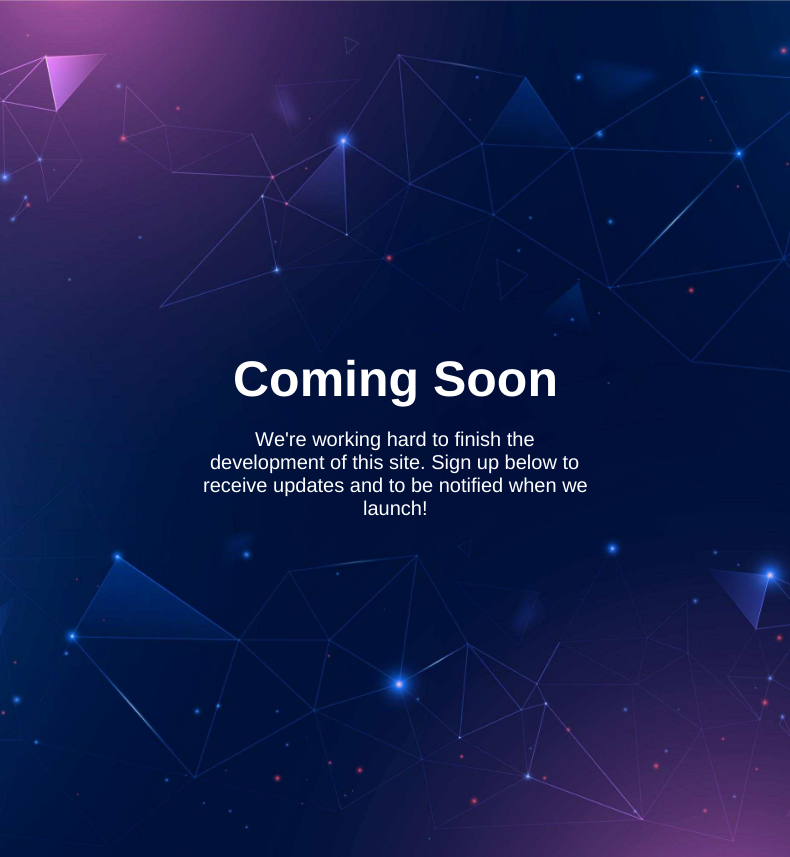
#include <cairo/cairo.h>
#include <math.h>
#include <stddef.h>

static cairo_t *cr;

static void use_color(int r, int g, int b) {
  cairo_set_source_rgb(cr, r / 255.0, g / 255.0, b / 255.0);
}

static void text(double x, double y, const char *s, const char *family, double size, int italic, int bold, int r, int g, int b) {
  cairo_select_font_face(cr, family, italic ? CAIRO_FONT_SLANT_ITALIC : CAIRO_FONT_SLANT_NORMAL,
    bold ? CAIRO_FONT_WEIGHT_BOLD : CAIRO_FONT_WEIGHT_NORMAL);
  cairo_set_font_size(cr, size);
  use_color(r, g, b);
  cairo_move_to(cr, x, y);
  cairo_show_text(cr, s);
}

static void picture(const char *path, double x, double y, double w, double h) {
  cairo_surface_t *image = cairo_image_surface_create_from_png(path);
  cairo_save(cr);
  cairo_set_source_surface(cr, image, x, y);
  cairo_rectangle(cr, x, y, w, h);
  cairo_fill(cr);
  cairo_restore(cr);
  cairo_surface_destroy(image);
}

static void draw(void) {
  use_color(255, 255, 255);
  cairo_paint(cr);
  picture("img_01.png", 0, 0, 790, 857);
  text(233, 396, "Coming Soon", "Liberation Sans", 50, 0, 1, 255, 255, 255);
  text(255, 446, "We're working hard to finish the", "Liberation Sans", 20, 0, 0, 255, 255, 255);
  text(210, 469, "development of this site. Sign up below to", "Liberation Sans", 20, 0, 0, 255, 255, 255);
  text(203, 492, "receive updates and to be notified when we", "Liberation Sans", 20, 0, 0, 255, 255, 255);
  text(363, 515, "launch!", "Liberation Sans", 20, 0, 0, 255, 255, 255);
}

int main(void) {
  cairo_surface_t *surface = cairo_image_surface_create(CAIRO_FORMAT_RGB24, 790, 857);
  cr = cairo_create(surface);
  cairo_font_options_t *options = cairo_font_options_create();
  cairo_font_options_set_hint_metrics(options, CAIRO_HINT_METRICS_OFF);
  cairo_font_options_set_hint_style(options, CAIRO_HINT_STYLE_NONE);
  cairo_set_font_options(cr, options);
  cairo_set_miter_limit(cr, 4);
  draw();
  cairo_surface_write_to_png(surface, "out.png");
  cairo_font_options_destroy(options);
  cairo_destroy(cr);
  cairo_surface_destroy(surface);
  return 0;
}
